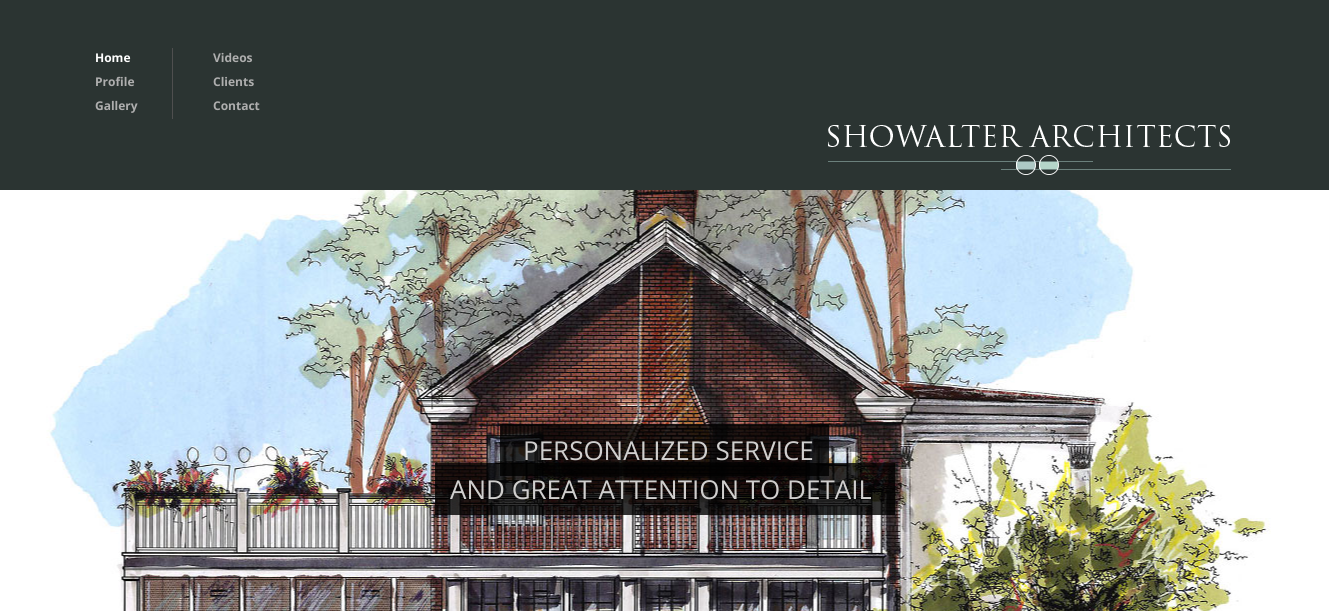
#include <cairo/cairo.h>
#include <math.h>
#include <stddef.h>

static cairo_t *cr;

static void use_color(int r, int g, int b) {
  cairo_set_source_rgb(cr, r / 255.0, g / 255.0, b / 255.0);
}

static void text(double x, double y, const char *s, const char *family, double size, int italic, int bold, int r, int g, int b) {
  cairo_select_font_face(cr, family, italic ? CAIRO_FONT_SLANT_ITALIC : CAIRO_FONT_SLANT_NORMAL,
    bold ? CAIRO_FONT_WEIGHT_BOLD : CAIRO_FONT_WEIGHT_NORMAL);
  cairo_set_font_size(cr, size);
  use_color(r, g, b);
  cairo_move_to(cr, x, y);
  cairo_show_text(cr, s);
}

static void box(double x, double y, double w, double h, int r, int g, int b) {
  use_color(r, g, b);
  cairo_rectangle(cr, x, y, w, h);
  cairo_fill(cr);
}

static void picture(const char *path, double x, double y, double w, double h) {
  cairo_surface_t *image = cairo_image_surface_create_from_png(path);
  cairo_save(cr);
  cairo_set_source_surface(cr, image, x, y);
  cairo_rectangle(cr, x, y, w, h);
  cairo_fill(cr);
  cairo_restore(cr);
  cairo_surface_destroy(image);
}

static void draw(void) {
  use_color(43, 52, 50);
  cairo_paint(cr);
  box(172, 48, 1, 71, 79, 79, 79);
  picture("img_01.png", 828, 125, 403, 50);
  picture("img_02.png", 0, 190, 1329, 421);
  cairo_set_source_rgba(cr, 0, 0, 0, 0.8);
  cairo_rectangle(cr, 500, 424, 15, 52);
  cairo_fill(cr);
  cairo_rectangle(cr, 814, 424, 15, 52);
  cairo_fill(cr);
  cairo_rectangle(cr, 515, 424, 299, 52);
  cairo_fill(cr);
  cairo_rectangle(cr, 435, 463, 15, 52);
  cairo_fill(cr);
  cairo_rectangle(cr, 880, 463, 15, 52);
  cairo_fill(cr);
  cairo_rectangle(cr, 450, 463, 430, 52);
  cairo_fill(cr);
  text(95, 62, "Home", "Open Sans", 12, 0, 1, 255, 255, 255);
  text(95, 86, "Profile", "Open Sans", 12, 0, 1, 174, 174, 174);
  text(95, 110, "Gallery", "Open Sans", 12, 0, 1, 174, 174, 174);
  text(213, 62, "Videos", "Open Sans", 12, 0, 1, 174, 174, 174);
  text(213, 86, "Clients", "Open Sans", 12, 0, 1, 174, 174, 174);
  text(213, 110, "Contact", "Open Sans", 12, 0, 1, 174, 174, 174);
  text(523, 460, "PERSONALIZED SERVICE", "Open Sans", 26, 0, 0, 208, 207, 206);
  text(450, 499, "AND GREAT ATTENTION TO DETAIL", "Open Sans", 26, 0, 0, 208, 207, 206);
}

int main(void) {
  cairo_surface_t *surface = cairo_image_surface_create(CAIRO_FORMAT_RGB24, 1329, 611);
  cr = cairo_create(surface);
  cairo_font_options_t *options = cairo_font_options_create();
  cairo_font_options_set_hint_metrics(options, CAIRO_HINT_METRICS_OFF);
  cairo_font_options_set_hint_style(options, CAIRO_HINT_STYLE_NONE);
  cairo_set_font_options(cr, options);
  cairo_set_miter_limit(cr, 4);
  draw();
  cairo_surface_write_to_png(surface, "out.png");
  cairo_font_options_destroy(options);
  cairo_destroy(cr);
  cairo_surface_destroy(surface);
  return 0;
}
